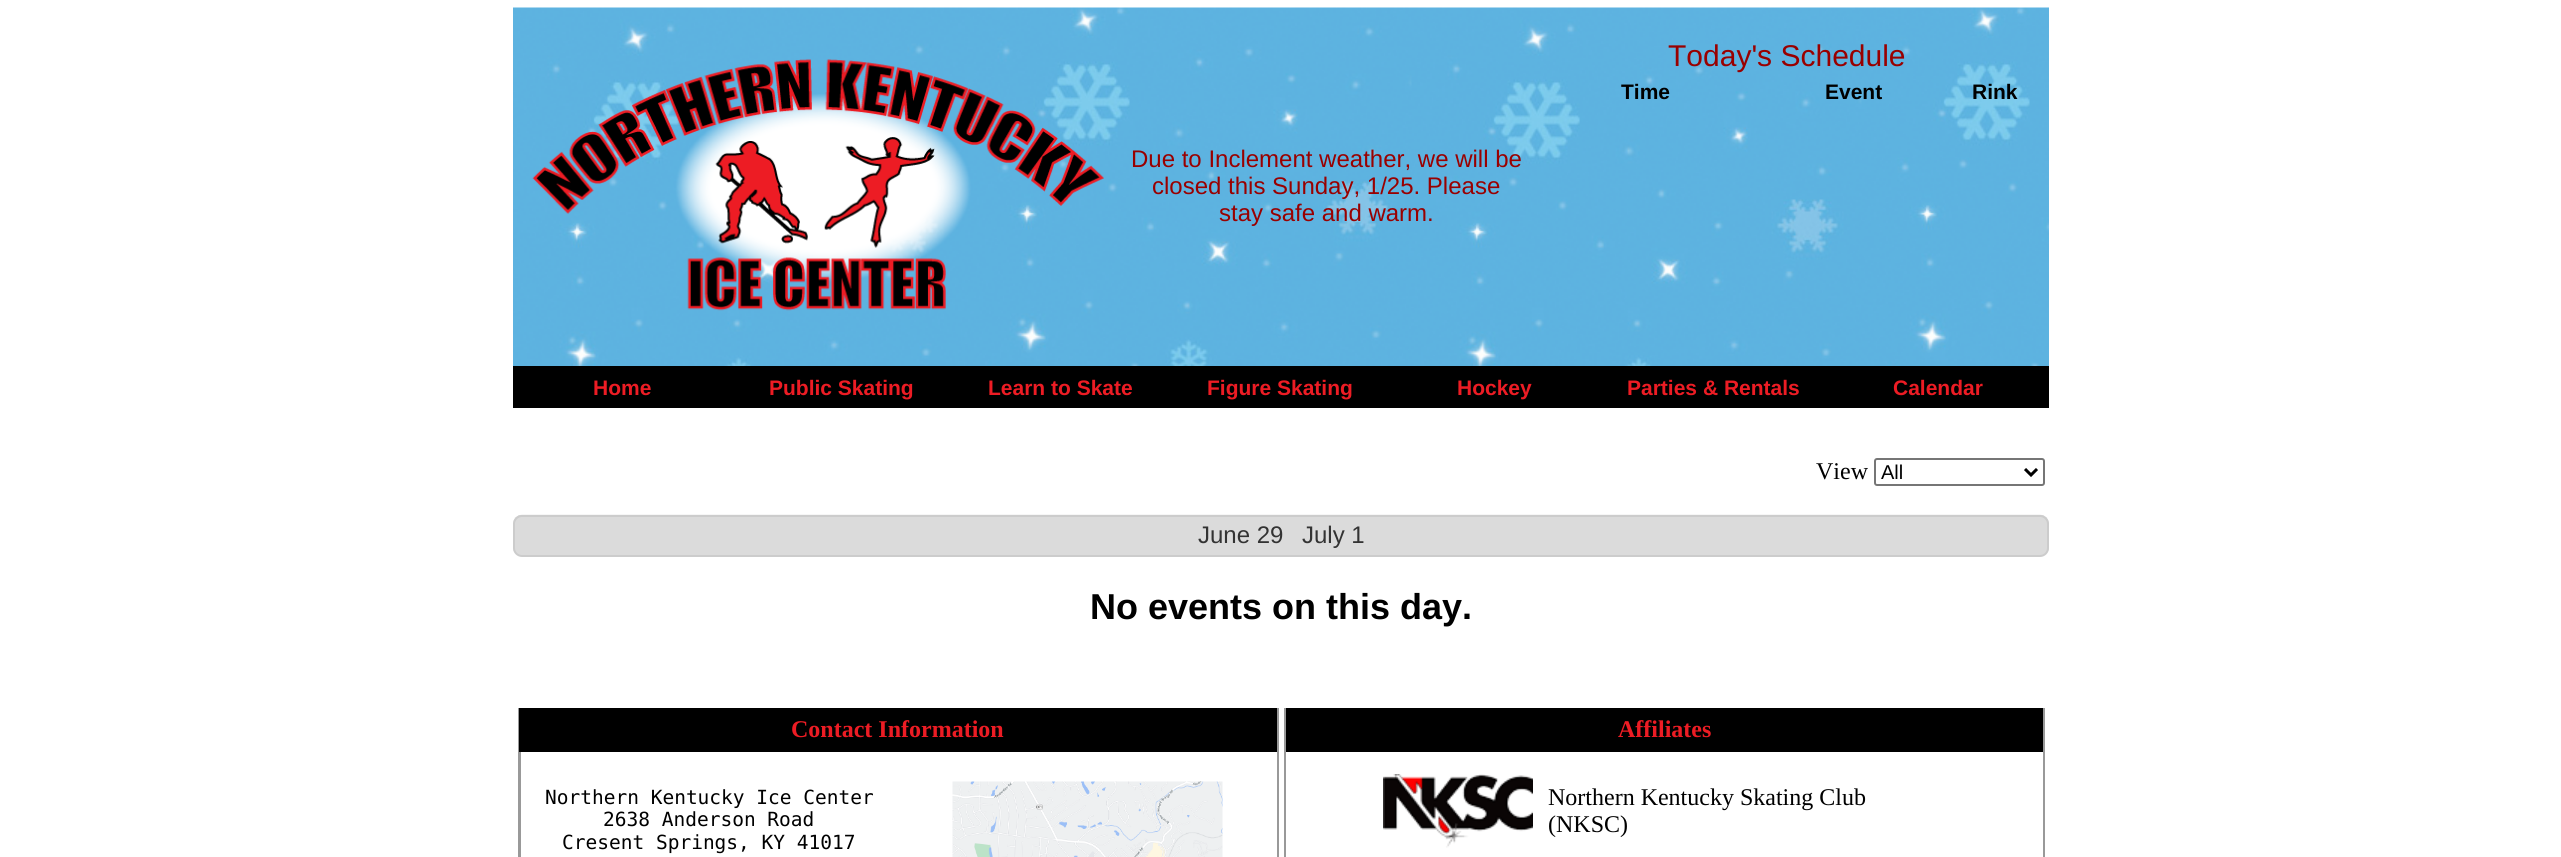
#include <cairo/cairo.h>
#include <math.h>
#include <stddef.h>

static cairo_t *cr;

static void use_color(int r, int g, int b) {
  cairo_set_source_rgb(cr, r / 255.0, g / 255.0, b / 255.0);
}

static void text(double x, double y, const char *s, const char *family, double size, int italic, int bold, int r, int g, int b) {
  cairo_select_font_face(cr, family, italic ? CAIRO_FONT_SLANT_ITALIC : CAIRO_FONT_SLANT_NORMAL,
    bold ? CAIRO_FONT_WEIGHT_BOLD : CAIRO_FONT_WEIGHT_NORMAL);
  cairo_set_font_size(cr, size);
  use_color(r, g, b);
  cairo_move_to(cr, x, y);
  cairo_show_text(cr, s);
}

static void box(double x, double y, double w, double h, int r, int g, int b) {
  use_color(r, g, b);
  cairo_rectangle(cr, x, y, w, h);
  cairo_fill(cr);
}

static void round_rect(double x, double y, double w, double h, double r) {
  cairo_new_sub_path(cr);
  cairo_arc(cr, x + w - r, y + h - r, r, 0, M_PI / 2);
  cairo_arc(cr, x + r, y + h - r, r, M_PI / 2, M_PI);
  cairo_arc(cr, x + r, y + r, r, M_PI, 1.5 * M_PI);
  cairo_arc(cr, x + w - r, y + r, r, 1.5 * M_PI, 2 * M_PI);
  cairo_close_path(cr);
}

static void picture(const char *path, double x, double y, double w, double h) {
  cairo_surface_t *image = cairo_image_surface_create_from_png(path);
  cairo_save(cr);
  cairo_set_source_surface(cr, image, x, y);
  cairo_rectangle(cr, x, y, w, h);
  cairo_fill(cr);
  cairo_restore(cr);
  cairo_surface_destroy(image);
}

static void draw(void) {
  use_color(255, 255, 255);
  cairo_paint(cr);
  picture("img_01.png", 513, 7, 1536, 359);
  picture("img_02.png", 532, 59, 572, 252);
  box(513, 366, 1536, 42, 0, 0, 0);
  round_rect(1875, 459, 169, 26, 2);
  use_color(118, 118, 118);
  cairo_stroke(cr);
  cairo_new_path(cr);
  cairo_move_to(cr, 2025, 469);
  cairo_line_to(cr, 2031, 475);
  cairo_line_to(cr, 2037, 469);
  use_color(0, 0, 0);
  cairo_set_line_width(cr, 3);
  cairo_stroke(cr);
  picture("img_03.png", 513, 514, 1536, 41);
  round_rect(514, 516, 1534, 40, 8);
  use_color(204, 204, 204);
  cairo_set_line_width(cr, 2);
  cairo_stroke(cr);
  box(1277, 708, 2, 149, 153, 153, 153);
  box(518, 708, 1, 149, 153, 153, 153);
  box(519, 708, 758, 44, 0, 0, 0);
  box(519, 752, 2, 105, 153, 153, 153);
  picture("img_04.png", 952, 781, 271, 76);
  box(2043, 708, 2, 149, 153, 153, 153);
  box(1284, 708, 2, 149, 153, 153, 153);
  box(1286, 708, 757, 44, 0, 0, 0);
  picture("img_05.png", 1383, 774, 150, 74);
  text(1131, 167, "Due to Inclement weather, we will be", "Liberation Sans", 24, 0, 0, 153, 0, 0);
  text(1152, 194, "closed this Sunday, 1/25. Please", "Liberation Sans", 24, 0, 0, 153, 0, 0);
  text(1219, 221, "stay safe and warm.", "Liberation Sans", 24, 0, 0, 153, 0, 0);
  text(1668, 66, "Today's Schedule", "Liberation Sans", 30, 0, 0, 153, 0, 0);
  text(1621, 99, "Time", "Liberation Sans", 21, 0, 1, 0, 0, 0);
  text(1825, 99, "Event", "Liberation Sans", 21, 0, 1, 0, 0, 0);
  text(1972, 99, "Rink", "Liberation Sans", 21, 0, 1, 0, 0, 0);
  text(593, 395, "Home", "Liberation Sans", 21, 0, 1, 237, 28, 36);
  text(769, 395, "Public Skating", "Liberation Sans", 21, 0, 1, 237, 28, 36);
  text(988, 395, "Learn to Skate", "Liberation Sans", 21, 0, 1, 237, 28, 36);
  text(1207, 395, "Figure Skating", "Liberation Sans", 21, 0, 1, 237, 28, 36);
  text(1457, 395, "Hockey", "Liberation Sans", 21, 0, 1, 237, 28, 36);
  text(1627, 395, "Parties & Rentals", "Liberation Sans", 21, 0, 1, 237, 28, 36);
  text(1893, 395, "Calendar", "Liberation Sans", 21, 0, 1, 237, 28, 36);
  text(1816, 479, "View", "Liberation Serif", 24, 0, 0, 0, 0, 0);
  text(1881, 479, "All", "Liberation Sans", 20, 0, 0, 0, 0, 0);
  text(1198, 543, "June 29", "Liberation Sans", 24, 0, 0, 51, 51, 51);
  text(1302, 543, "July 1", "Liberation Sans", 24, 0, 0, 51, 51, 51);
  text(1090, 619, "No events on this day.", "Liberation Sans", 36, 0, 1, 0, 0, 0);
  text(791, 737, "Contact Information", "Liberation Serif", 24, 0, 1, 237, 28, 36);
  text(545, 804, "Northern Kentucky Ice Center", "DejaVu Sans Mono", 19.5, 0, 0, 0, 0, 0);
  text(603, 826, "2638 Anderson Road", "DejaVu Sans Mono", 19.5, 0, 0, 0, 0, 0);
  text(562, 849, "Cresent Springs, KY 41017", "DejaVu Sans Mono", 19.5, 0, 0, 0, 0, 0);
  text(1618, 737, "Affiliates", "Liberation Serif", 24, 0, 1, 237, 28, 36);
  text(1548, 805, "Northern Kentucky Skating Club", "Liberation Serif", 24, 0, 0, 0, 0, 0);
  text(1548, 832, "(NKSC)", "Liberation Serif", 24, 0, 0, 0, 0, 0);
}

int main(void) {
  cairo_surface_t *surface = cairo_image_surface_create(CAIRO_FORMAT_RGB24, 2561, 857);
  cr = cairo_create(surface);
  cairo_font_options_t *options = cairo_font_options_create();
  cairo_font_options_set_hint_metrics(options, CAIRO_HINT_METRICS_OFF);
  cairo_font_options_set_hint_style(options, CAIRO_HINT_STYLE_NONE);
  cairo_set_font_options(cr, options);
  cairo_set_miter_limit(cr, 4);
  draw();
  cairo_surface_write_to_png(surface, "out.png");
  cairo_font_options_destroy(options);
  cairo_destroy(cr);
  cairo_surface_destroy(surface);
  return 0;
}
